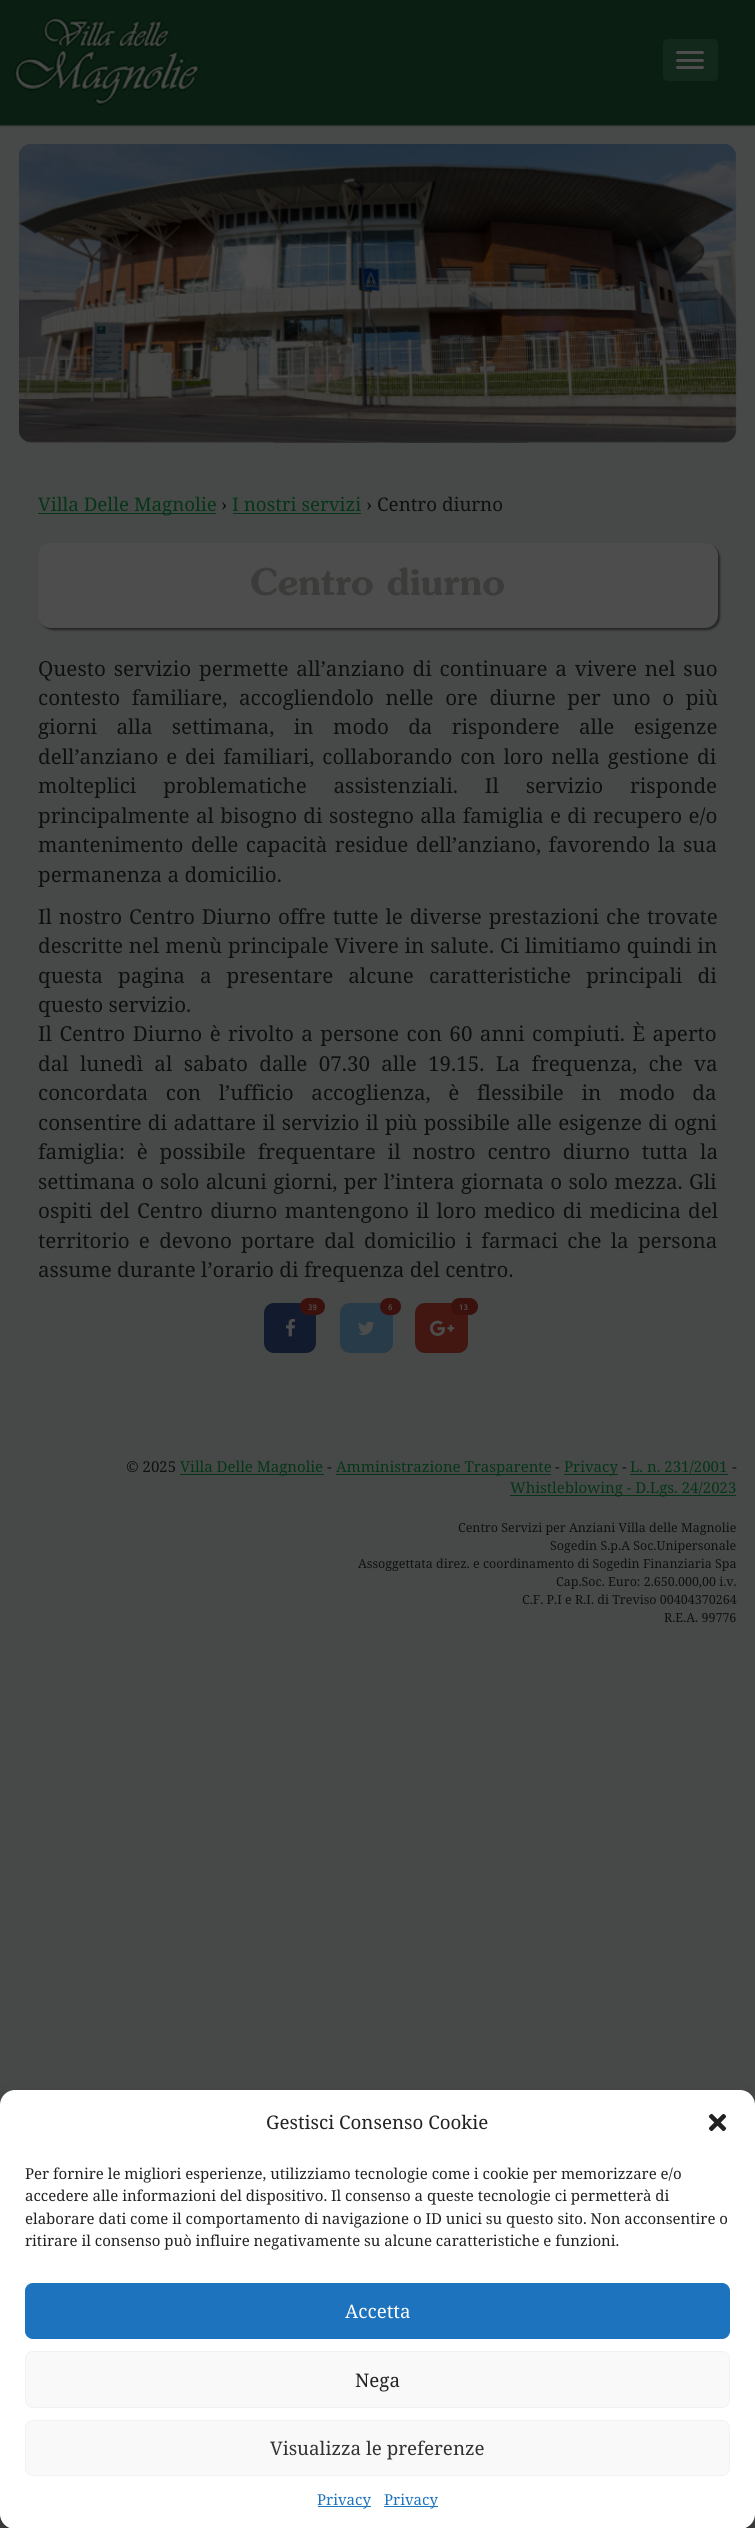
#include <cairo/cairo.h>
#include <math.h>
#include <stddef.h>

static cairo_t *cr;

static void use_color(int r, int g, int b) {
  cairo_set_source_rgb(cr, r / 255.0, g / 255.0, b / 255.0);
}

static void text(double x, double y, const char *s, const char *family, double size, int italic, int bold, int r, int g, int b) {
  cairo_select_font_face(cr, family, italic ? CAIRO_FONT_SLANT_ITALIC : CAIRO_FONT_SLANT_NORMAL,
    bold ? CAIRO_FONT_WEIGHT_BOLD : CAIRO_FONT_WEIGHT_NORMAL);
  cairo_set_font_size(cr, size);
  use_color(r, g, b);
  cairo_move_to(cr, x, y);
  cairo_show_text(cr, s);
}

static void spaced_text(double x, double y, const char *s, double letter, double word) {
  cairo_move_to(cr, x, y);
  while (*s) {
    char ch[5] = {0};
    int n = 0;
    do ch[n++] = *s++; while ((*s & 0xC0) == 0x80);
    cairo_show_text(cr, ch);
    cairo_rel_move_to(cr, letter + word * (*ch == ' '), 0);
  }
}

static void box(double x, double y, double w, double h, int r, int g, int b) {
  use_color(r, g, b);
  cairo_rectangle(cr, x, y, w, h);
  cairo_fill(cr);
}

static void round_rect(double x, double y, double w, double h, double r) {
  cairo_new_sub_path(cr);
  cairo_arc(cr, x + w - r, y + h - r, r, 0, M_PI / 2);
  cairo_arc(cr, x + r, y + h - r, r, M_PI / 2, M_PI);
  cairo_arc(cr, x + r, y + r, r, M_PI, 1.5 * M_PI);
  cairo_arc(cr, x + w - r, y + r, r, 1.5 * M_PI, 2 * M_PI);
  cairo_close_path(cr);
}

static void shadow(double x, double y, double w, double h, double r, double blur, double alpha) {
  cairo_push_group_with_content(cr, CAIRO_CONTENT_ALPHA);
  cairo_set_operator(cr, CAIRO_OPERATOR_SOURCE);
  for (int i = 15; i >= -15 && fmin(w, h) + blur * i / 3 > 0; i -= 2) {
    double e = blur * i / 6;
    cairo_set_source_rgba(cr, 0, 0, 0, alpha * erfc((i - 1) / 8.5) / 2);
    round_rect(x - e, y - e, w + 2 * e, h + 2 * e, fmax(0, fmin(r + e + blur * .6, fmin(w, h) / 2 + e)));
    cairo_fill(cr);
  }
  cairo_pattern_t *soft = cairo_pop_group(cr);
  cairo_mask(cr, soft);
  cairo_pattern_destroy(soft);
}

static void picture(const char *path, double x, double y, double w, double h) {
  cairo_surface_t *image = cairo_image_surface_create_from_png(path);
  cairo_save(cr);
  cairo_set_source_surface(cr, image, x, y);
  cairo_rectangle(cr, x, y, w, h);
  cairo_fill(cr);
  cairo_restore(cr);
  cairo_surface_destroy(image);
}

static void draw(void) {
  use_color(71, 73, 72);
  cairo_paint(cr);
  picture("img_01.png", 19, 144, 718, 299);
  use_color(0, 0, 0);
  shadow(0, 0, 755, 125, 0, 1, 1);
  box(0, 0, 755, 125, 10, 30, 18);
  picture("img_02.png", 14, 17, 186, 89);
  use_color(18, 40, 26);
  round_rect(663, 39, 55, 42, 5);
  cairo_fill(cr);
  use_color(77, 77, 77);
  round_rect(676, 51, 28, 3, 1.5);
  cairo_fill(cr);
  round_rect(676, 59, 28, 3, 1.5);
  cairo_fill(cr);
  round_rect(676, 66, 28, 3, 1.5);
  cairo_fill(cr);
  box(38, 513, 178, 1, 5, 53, 23);
  box(233, 513, 128, 1, 5, 53, 23);
  use_color(36, 36, 36);
  shadow(40, 545, 680, 85, 13, 1, 1);
  use_color(77, 77, 77);
  round_rect(38, 543, 680, 85, 13);
  cairo_fill(cr);
  use_color(18, 27, 46);
  round_rect(264, 1303, 52, 50, 10);
  cairo_fill(cr);
  use_color(58, 17, 13);
  round_rect(300, 1298, 25, 17, 8.5);
  cairo_fill(cr);
  picture("img_03.png", 286, 1318, 10, 19);
  use_color(39, 59, 73);
  round_rect(340, 1303, 53, 50, 10);
  cairo_fill(cr);
  use_color(58, 17, 13);
  round_rect(380, 1298, 21, 17, 8.5);
  cairo_fill(cr);
  picture("img_04.png", 358, 1321, 17, 14);
  use_color(66, 23, 17);
  round_rect(415, 1303, 53, 50, 10);
  cairo_fill(cr);
  use_color(58, 17, 13);
  round_rect(451, 1298, 27, 17, 8.5);
  cairo_fill(cr);
  picture("img_05.png", 430, 1320, 25, 16);
  box(180, 1474, 144, 1, 5, 53, 23);
  box(336, 1474, 215, 1, 5, 53, 23);
  box(564, 1474, 54, 1, 5, 53, 23);
  box(630, 1474, 98, 1, 5, 53, 23);
  box(510, 1495, 226, 1, 5, 53, 23);
  use_color(0, 0, 0);
  shadow(0, 2098, 755, 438, 15, 4, 0.23);
  shadow(0, 2103, 755, 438, 15, 12.5, 0.19);
  use_color(255, 255, 255);
  round_rect(0, 2090, 755, 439, 15);
  cairo_fill(cr);
  picture("img_06.png", 708, 2113, 19, 19);
  use_color(30, 115, 190);
  round_rect(25.5, 2283.5, 704, 55, 7.5);
  cairo_fill_preserve(cr);
  cairo_set_line_width(cr, 1);
  cairo_stroke(cr);
  use_color(249, 249, 249);
  round_rect(25.5, 2351.5, 704, 56, 7.5);
  cairo_fill_preserve(cr);
  use_color(242, 242, 242);
  cairo_stroke(cr);
  use_color(249, 249, 249);
  round_rect(25.5, 2420.5, 704, 55, 7.5);
  cairo_fill_preserve(cr);
  use_color(242, 242, 242);
  cairo_stroke(cr);
  box(318, 2506, 53, 1, 30, 115, 190);
  box(384, 2506, 54, 1, 30, 115, 190);
  text(38, 511, "Villa Delle Magnolie", "Noto Serif", 18.75, 0, 0, 5, 53, 23);
  text(221, 511, "›", "Noto Serif", 18.75, 0, 0, 15, 15, 15);
  text(232, 511, "I nostri servizi", "Noto Serif", 18.75, 0, 0, 5, 53, 23);
  text(366, 511, "› Centro diurno", "Noto Serif", 18.75, 0, 0, 15, 15, 15);
  text(250, 595, "Centro diurno", "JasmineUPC", 60, 0, 1, 59, 59, 58);
  cairo_select_font_face(cr, "Noto Serif", CAIRO_FONT_SLANT_NORMAL, CAIRO_FONT_WEIGHT_NORMAL);
  cairo_set_font_size(cr, 20.6);
  use_color(15, 15, 15);
  spaced_text(38, 676, "Questo servizio permette all’anziano di continuare a vivere nel suo", 0, 2.5);
  spaced_text(38, 705, "contesto familiare, accogliendolo nelle ore diurne per uno o più", 0, 6.25);
  spaced_text(38, 734, "giorni alla settimana, in modo da rispondere alle esigenze", 0, 14);
  spaced_text(38, 764, "dell’anziano e dei familiari, collaborando con loro nella gestione di", 0, 2.5);
  spaced_text(38, 793, "molteplici problematiche assistenziali. Il servizio risponde", 0, 21.5);
  spaced_text(38, 823, "principalmente al bisogno di sostegno alla famiglia e di recupero e/o", 0, 1);
  spaced_text(38, 852, "mantenimento delle capacità residue dell’anziano, favorendo la sua", 0, 2.1);
  text(38, 882, "permanenza a domicilio.", "Noto Serif", 20.6, 0, 0, 15, 15, 15);
  spaced_text(38, 924, "Il nostro Centro Diurno offre tutte le diverse prestazioni che trovate", 0, 1.5);
  spaced_text(38, 953, "descritte nel menù principale Vivere in salute. Ci limitiamo quindi in", 0, 0.5);
  spaced_text(38, 983, "questa pagina a presentare alcune caratteristiche principali di", 0, 9.75);
  text(38, 1012, "questo servizio.", "Noto Serif", 20.6, 0, 0, 15, 15, 15);
  spaced_text(38, 1041, "Il Centro Diurno è rivolto a persone con 60 anni compiuti. È aperto", 0, 2.1);
  spaced_text(38, 1071, "dal lunedì al sabato dalle 07.30 alle 19.15. La frequenza, che va", 0, 6);
  spaced_text(38, 1100, "concordata con l’ufficio accoglienza, è flessibile in modo da", 0, 12.25);
  spaced_text(38, 1130, "consentire di adattare il servizio il più possibile alle esigenze di ogni", 0, 1);
  spaced_text(38, 1159, "famiglia: è possibile frequentare il nostro centro diurno tutta la", 0, 6.5);
  spaced_text(38, 1189, "settimana o solo alcuni giorni, per l’intera giornata o solo mezza. Gli", 0, 1);
  spaced_text(38, 1218, "ospiti del Centro diurno mantengono il loro medico di medicina del", 0, 2);
  spaced_text(38, 1248, "territorio e devono portare dal domicilio i farmaci che la persona", 0, 3.9);
  text(38, 1277, "assume durante l’orario di frequenza del centro.", "Noto Serif", 20.6, 0, 0, 15, 15, 15);
  text(308, 1310, "39", "Inconsolata", 9, 0, 1, 77, 77, 77);
  text(388, 1310, "6", "Inconsolata", 9, 0, 1, 77, 77, 77);
  text(459, 1310, "13", "Inconsolata", 9, 0, 1, 77, 77, 77);
  text(126, 1472, "© 2025", "Noto Serif", 15, 0, 0, 15, 15, 15);
  text(180, 1472, "Villa Delle Magnolie", "Noto Serif", 15, 0, 0, 5, 53, 23);
  text(327, 1472, "-", "Noto Serif", 15, 0, 0, 15, 15, 15);
  text(336, 1472, "Amministrazione Trasparente", "Noto Serif", 15, 0, 0, 5, 53, 23);
  text(555, 1472, "-", "Noto Serif", 15, 0, 0, 15, 15, 15);
  text(564, 1472, "Privacy", "Noto Serif", 15, 0, 0, 5, 53, 23);
  text(622, 1472, "-", "Noto Serif", 15, 0, 0, 15, 15, 15);
  text(630, 1472, "L. n. 231/2001", "Noto Serif", 15, 0, 0, 5, 53, 23);
  text(732, 1472, "-", "Noto Serif", 15, 0, 0, 15, 15, 15);
  text(510, 1493, "Whistleblowing - D.Lgs. 24/2023", "Noto Serif", 15, 0, 0, 5, 53, 23);
  text(458, 1532, "Centro Servizi per Anziani Villa delle Magnolie", "Noto Serif", 12.5, 0, 0, 15, 15, 15);
  text(550, 1550, "Sogedin S.p.A Soc.Unipersonale", "Noto Serif", 12.5, 0, 0, 15, 15, 15);
  text(358, 1568, "Assoggettata direz. e coordinamento di Sogedin Finanziaria Spa", "Noto Serif", 12.5, 0, 0, 15, 15, 15);
  text(556, 1586, "Cap.Soc. Euro: 2.650.000,00 i.v.", "Noto Serif", 12.5, 0, 0, 15, 15, 15);
  text(522, 1604, "C.F. P.I e R.I. di Treviso 00404370264", "Noto Serif", 12.5, 0, 0, 15, 15, 15);
  text(664, 1622, "R.E.A. 99776", "Noto Serif", 12.5, 0, 0, 15, 15, 15);
  text(266, 2129, "Gestisci Consenso Cookie", "Noto Serif", 18.75, 0, 0, 34, 34, 34);
  text(25, 2179, "Per fornire le migliori esperienze, utilizziamo tecnologie come i cookie per memorizzare e/o", "Noto Serif", 15, 0, 0, 34, 34, 34);
  text(25, 2201, "accedere alle informazioni del dispositivo. Il consenso a queste tecnologie ci permetterà di", "Noto Serif", 15, 0, 0, 34, 34, 34);
  text(25, 2224, "elaborare dati come il comportamento di navigazione o ID unici su questo sito. Non acconsentire o", "Noto Serif", 15, 0, 0, 34, 34, 34);
  text(25, 2246, "ritirare il consenso può influire negativamente su alcune caratteristiche e funzioni.", "Noto Serif", 15, 0, 0, 34, 34, 34);
  text(345, 2318, "Accetta", "Noto Serif", 18.75, 0, 0, 255, 255, 255);
  text(355, 2387, "Nega", "Noto Serif", 18.75, 0, 0, 34, 34, 34);
  text(270, 2455, "Visualizza le preferenze", "Noto Serif", 18.75, 0, 0, 51, 51, 51);
  text(317, 2505, "Privacy", "Noto Serif", 15, 0, 0, 30, 115, 190);
  text(384, 2505, "Privacy", "Noto Serif", 15, 0, 0, 30, 115, 190);
}

int main(void) {
  cairo_surface_t *surface = cairo_image_surface_create(CAIRO_FORMAT_RGB24, 755, 2528);
  cr = cairo_create(surface);
  cairo_font_options_t *options = cairo_font_options_create();
  cairo_font_options_set_hint_metrics(options, CAIRO_HINT_METRICS_OFF);
  cairo_font_options_set_hint_style(options, CAIRO_HINT_STYLE_NONE);
  cairo_set_font_options(cr, options);
  cairo_set_miter_limit(cr, 4);
  draw();
  cairo_surface_write_to_png(surface, "out.png");
  cairo_font_options_destroy(options);
  cairo_destroy(cr);
  cairo_surface_destroy(surface);
  return 0;
}
